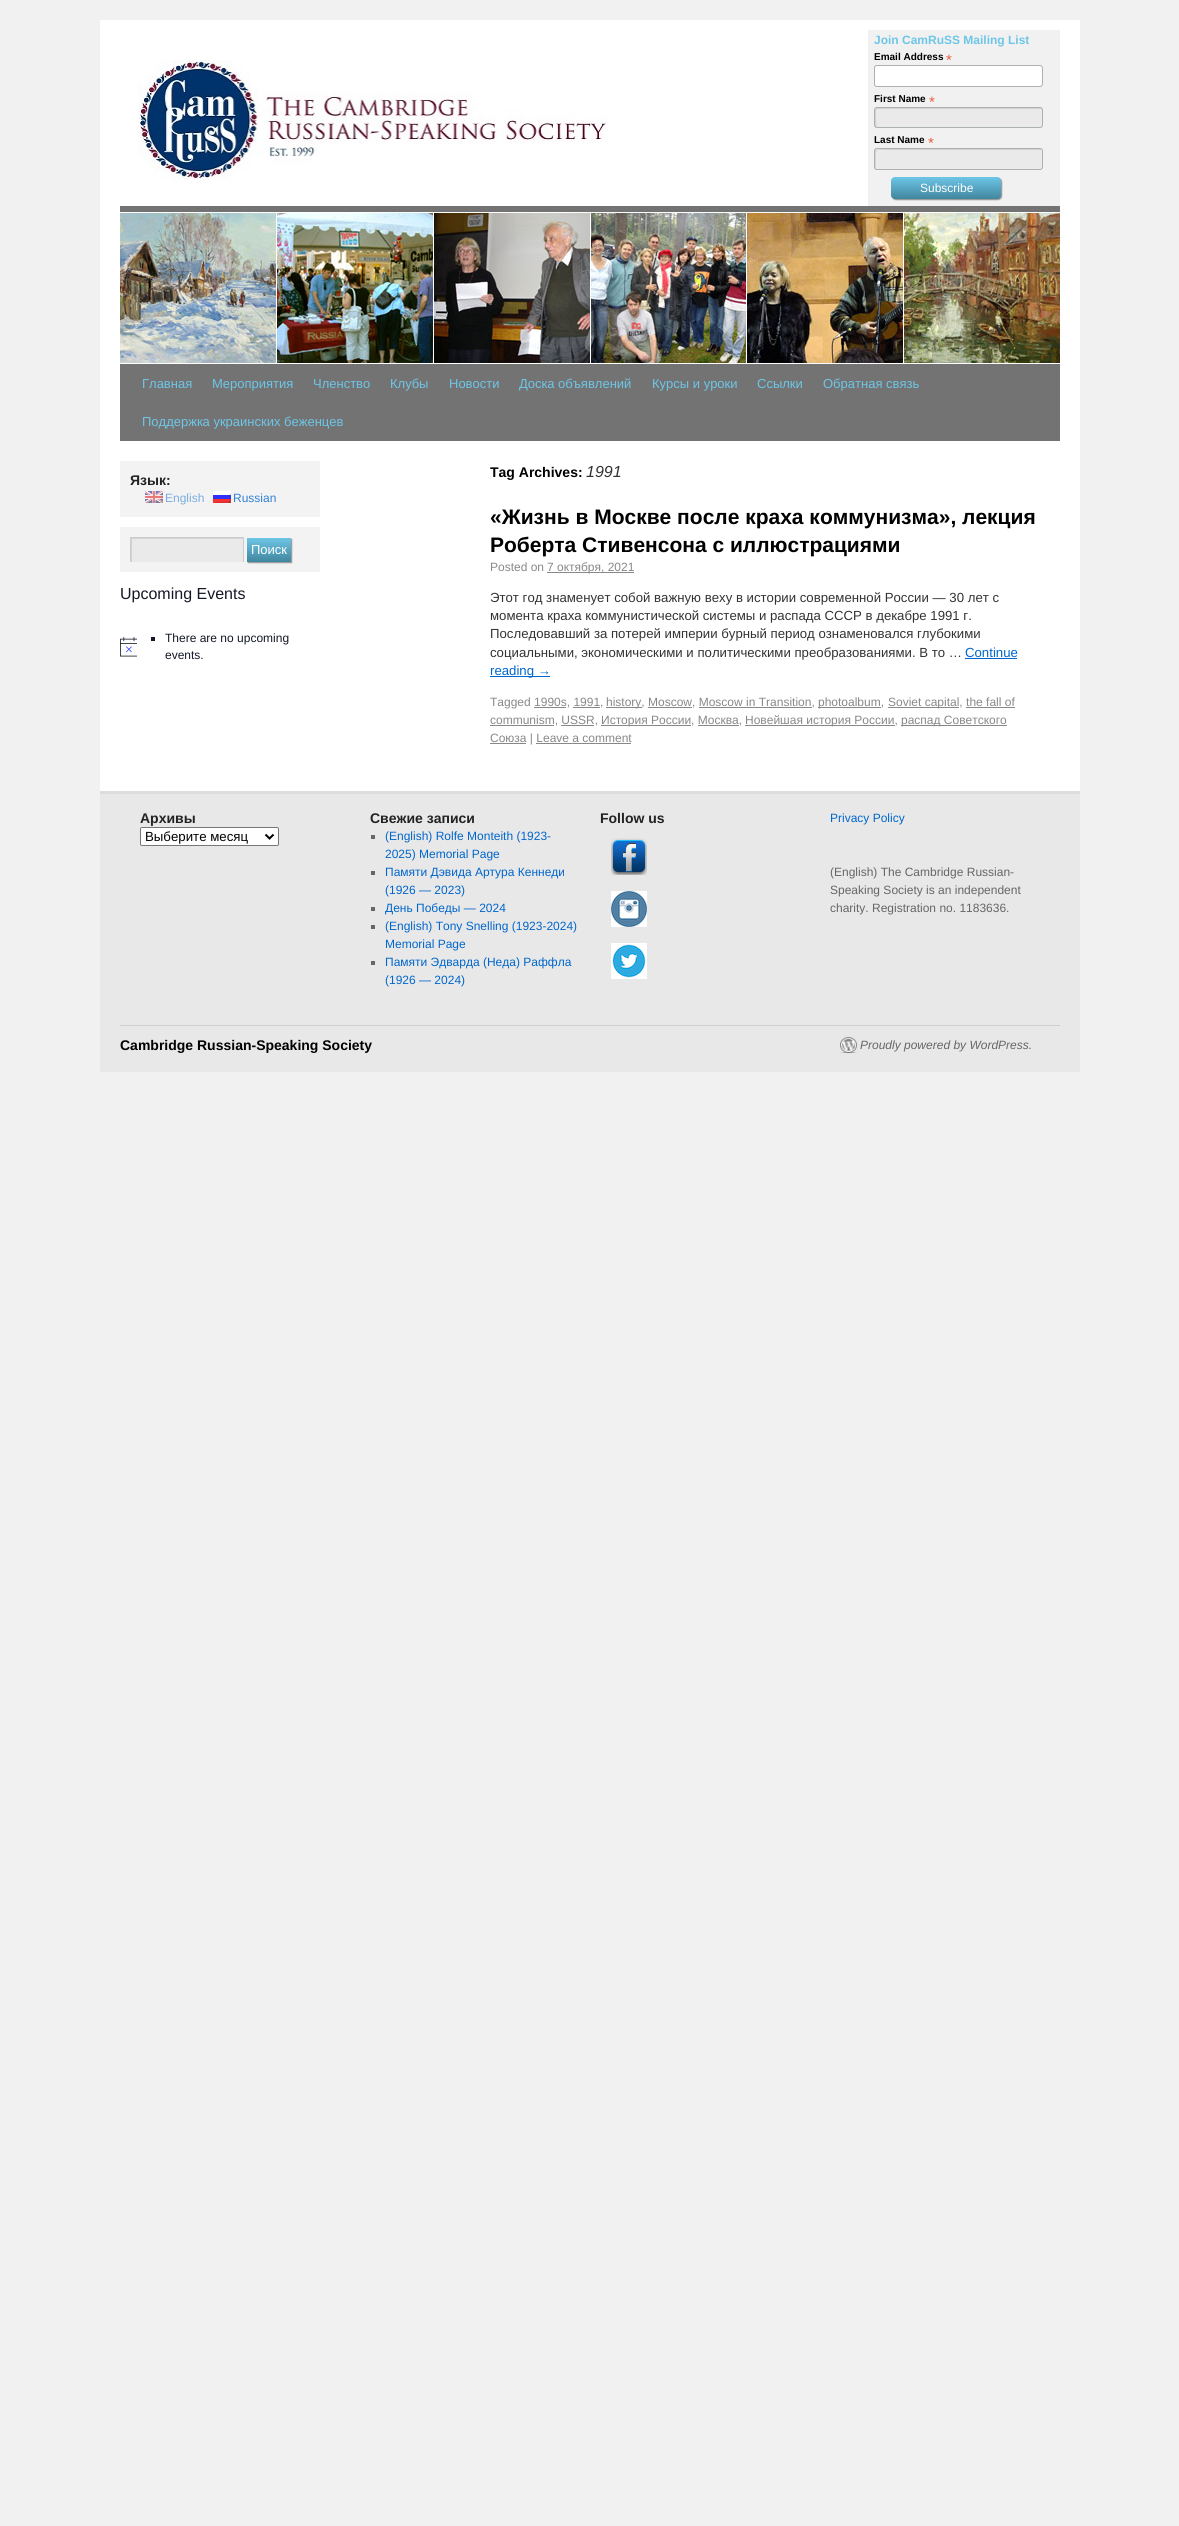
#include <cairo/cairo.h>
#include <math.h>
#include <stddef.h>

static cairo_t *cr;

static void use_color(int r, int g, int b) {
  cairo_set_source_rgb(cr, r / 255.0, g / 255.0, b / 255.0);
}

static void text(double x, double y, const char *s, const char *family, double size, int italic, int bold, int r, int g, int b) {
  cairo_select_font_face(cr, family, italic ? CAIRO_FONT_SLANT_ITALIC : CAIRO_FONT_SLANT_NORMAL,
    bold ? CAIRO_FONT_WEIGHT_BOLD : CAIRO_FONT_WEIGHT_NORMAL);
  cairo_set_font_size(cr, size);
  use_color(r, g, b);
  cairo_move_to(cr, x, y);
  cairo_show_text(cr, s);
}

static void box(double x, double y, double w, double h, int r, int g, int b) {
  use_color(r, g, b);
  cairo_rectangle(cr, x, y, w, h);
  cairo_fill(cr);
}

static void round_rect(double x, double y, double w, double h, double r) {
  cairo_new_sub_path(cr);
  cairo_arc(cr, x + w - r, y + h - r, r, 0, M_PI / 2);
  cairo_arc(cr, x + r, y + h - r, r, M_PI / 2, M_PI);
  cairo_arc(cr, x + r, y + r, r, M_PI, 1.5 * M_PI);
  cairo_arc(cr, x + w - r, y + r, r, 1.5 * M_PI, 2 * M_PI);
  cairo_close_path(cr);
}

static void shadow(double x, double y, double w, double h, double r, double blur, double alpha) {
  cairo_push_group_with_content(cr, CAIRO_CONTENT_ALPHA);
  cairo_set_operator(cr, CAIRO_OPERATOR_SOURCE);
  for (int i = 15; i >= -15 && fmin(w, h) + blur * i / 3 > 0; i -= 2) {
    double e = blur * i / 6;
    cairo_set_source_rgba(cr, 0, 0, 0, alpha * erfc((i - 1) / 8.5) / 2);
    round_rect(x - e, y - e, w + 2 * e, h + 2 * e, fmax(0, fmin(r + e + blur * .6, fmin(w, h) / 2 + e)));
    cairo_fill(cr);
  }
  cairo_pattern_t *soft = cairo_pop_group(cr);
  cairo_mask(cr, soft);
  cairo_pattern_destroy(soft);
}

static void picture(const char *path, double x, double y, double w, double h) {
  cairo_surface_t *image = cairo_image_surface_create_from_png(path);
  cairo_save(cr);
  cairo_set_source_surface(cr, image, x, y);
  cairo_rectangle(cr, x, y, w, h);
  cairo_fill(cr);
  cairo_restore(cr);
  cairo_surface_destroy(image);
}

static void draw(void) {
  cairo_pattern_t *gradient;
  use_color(241, 241, 241);
  cairo_paint(cr);
  box(100, 20, 980, 771, 255, 255, 255);
  picture("img_01.png", 138, 60, 470, 120);
  box(868, 30, 192, 176, 241, 241, 241);
  use_color(255, 255, 255);
  round_rect(874.5, 65.5, 168, 21, 2.5);
  cairo_fill_preserve(cr);
  use_color(171, 176, 178);
  cairo_set_line_width(cr, 1);
  cairo_stroke(cr);
  use_color(234, 234, 234);
  round_rect(874, 107, 169, 21, 3);
  cairo_fill(cr);
  use_color(211, 211, 211);
  cairo_new_path(cr);
  cairo_move_to(cr, 878, 109);
  cairo_line_to(cr, 1041, 109);
  cairo_line_to(cr, 1042, 109);
  cairo_curve_to(cr, 1042, 109, 1041, 108, 1040, 108);
  cairo_line_to(cr, 877, 108);
  cairo_curve_to(cr, 876, 108, 875, 109, 875, 110);
  cairo_line_to(cr, 875, 125);
  cairo_curve_to(cr, 875, 126, 876, 127, 877, 127);
  cairo_curve_to(cr, 876, 125, 876, 113, 876, 111);
  cairo_curve_to(cr, 876, 110, 877, 109, 878, 109);
  cairo_close_path(cr);
  cairo_fill(cr);
  round_rect(874.5, 107.5, 168, 20, 2.5);
  use_color(171, 176, 178);
  cairo_stroke(cr);
  use_color(234, 234, 234);
  round_rect(874, 148, 169, 22, 3);
  cairo_fill(cr);
  use_color(211, 211, 211);
  cairo_new_path(cr);
  cairo_move_to(cr, 878, 150);
  cairo_line_to(cr, 1042, 150);
  cairo_line_to(cr, 1040, 149);
  cairo_line_to(cr, 958, 149);
  cairo_curve_to(cr, 951, 149, 877, 148, 876, 150);
  cairo_line_to(cr, 875, 150);
  cairo_curve_to(cr, 875, 151, 874, 168, 876, 169);
  cairo_line_to(cr, 876, 160);
  cairo_curve_to(cr, 876, 158, 875, 150, 878, 150);
  cairo_close_path(cr);
  cairo_fill(cr);
  round_rect(874.5, 148.5, 168, 21, 2.5);
  use_color(171, 176, 178);
  cairo_stroke(cr);
  use_color(0, 0, 0);
  shadow(892, 178, 110, 22, 4, 0.5, 0.4);
  gradient = cairo_pattern_create_linear(891, 177, 891, 199);
  cairo_pattern_add_color_stop_rgba(gradient, 0, 0.427, 0.776, 0.906, 1);
  cairo_pattern_add_color_stop_rgba(gradient, 1, 0.255, 0.525, 0.62, 1);
  cairo_set_source(cr, gradient);
  cairo_pattern_destroy(gradient);
  round_rect(891, 177, 110, 22, 4);
  cairo_fill(cr);
  box(120, 206, 940, 6, 115, 115, 115);
  box(120, 364, 940, 77, 115, 115, 115);
  picture("img_02.png", 120, 212, 940, 152);
  box(120, 461, 200, 56, 243, 243, 243);
  picture("img_03.png", 145, 491, 18, 12);
  picture("img_04.png", 213, 491, 18, 12);
  box(120, 527, 200, 45, 243, 243, 243);
  box(132, 539, 111, 23, 234, 234, 234);
  cairo_save(cr);
  cairo_rectangle(cr, 131, 538, 112, 24);
  cairo_clip(cr);
  use_color(211, 211, 211);
  cairo_set_fill_rule(cr, CAIRO_FILL_RULE_EVEN_ODD);
  cairo_new_path(cr);
  cairo_move_to(cr, 32, 439);
  cairo_line_to(cr, 342, 439);
  cairo_line_to(cr, 342, 661);
  cairo_line_to(cr, 32, 661);
  cairo_close_path(cr);
  cairo_move_to(cr, 132, 539);
  cairo_line_to(cr, 244, 539);
  cairo_line_to(cr, 244, 563);
  cairo_line_to(cr, 132, 563);
  cairo_close_path(cr);
  cairo_fill(cr);
  cairo_restore(cr);
  box(130, 537, 114, 1, 204, 204, 204);
  box(243, 537, 1, 25, 204, 204, 204);
  box(130, 537, 1, 25, 204, 204, 204);
  use_color(0, 0, 0);
  shadow(248, 539, 44, 24, 0, 0.5, 0.4);
  gradient = cairo_pattern_create_linear(247, 538, 247, 562);
  cairo_pattern_add_color_stop_rgba(gradient, 0, 0.427, 0.776, 0.906, 1);
  cairo_pattern_add_color_stop_rgba(gradient, 1, 0.255, 0.525, 0.62, 1);
  cairo_set_source(cr, gradient);
  cairo_pattern_destroy(gradient);
  cairo_rectangle(cr, 247, 538, 44, 24);
  cairo_fill(cr);
  picture("img_05.png", 120, 637, 17, 20);
  box(151, 637, 4, 4, 20, 24, 39);
  box(547, 572, 87, 1, 136, 136, 136);
  box(965, 658, 52, 1, 0, 102, 204);
  box(490, 676, 60, 1, 0, 102, 204);
  box(534, 707, 32, 1, 136, 136, 136);
  box(573, 707, 27, 1, 136, 136, 136);
  box(606, 707, 36, 1, 136, 136, 136);
  box(648, 707, 44, 1, 136, 136, 136);
  box(699, 707, 113, 1, 136, 136, 136);
  box(818, 707, 63, 1, 136, 136, 136);
  box(888, 707, 71, 1, 136, 136, 136);
  box(966, 707, 49, 1, 136, 136, 136);
  box(490, 725, 64, 1, 136, 136, 136);
  box(561, 725, 33, 1, 136, 136, 136);
  box(601, 725, 90, 1, 136, 136, 136);
  box(698, 725, 41, 1, 136, 136, 136);
  box(745, 725, 150, 1, 136, 136, 136);
  box(901, 725, 106, 1, 136, 136, 136);
  box(490, 743, 36, 1, 136, 136, 136);
  box(536, 743, 95, 1, 136, 136, 136);
  box(100, 794, 980, 278, 232, 232, 232);
  box(100, 791, 980, 3, 221, 221, 221);
  box(120, 1025, 940, 1, 207, 207, 207);
  use_color(255, 255, 255);
  round_rect(140.5, 827.5, 138, 18, 1.5);
  cairo_fill_preserve(cr);
  use_color(118, 118, 118);
  cairo_stroke(cr);
  cairo_new_path(cr);
  cairo_move_to(cr, 265.5, 834.5);
  cairo_line_to(cr, 269.5, 838.5);
  cairo_line_to(cr, 273.5, 834.5);
  use_color(0, 0, 0);
  cairo_set_line_width(cr, 2);
  cairo_stroke(cr);
  box(371, 835, 4, 4, 102, 102, 102);
  box(371, 871, 4, 4, 102, 102, 102);
  box(371, 907, 4, 4, 102, 102, 102);
  box(371, 925, 4, 4, 102, 102, 102);
  box(371, 961, 4, 4, 102, 102, 102);
  picture("img_06.png", 611, 838, 36, 37);
  picture("img_07.png", 611, 891, 36, 36);
  picture("img_08.png", 611, 943, 36, 36);
  picture("img_09.png", 840, 1037, 17, 16);
  text(874, 44, "Join CamRuSS Mailing List", "Liberation Sans", 12, 0, 1, 109, 198, 231);
  text(874, 60, "Email Address", "Liberation Sans", 10, 0, 1, 0, 0, 0);
  text(946, 65, "*", "Liberation Sans", 15, 0, 0, 232, 92, 65);
  text(874, 102, "First Name", "Liberation Sans", 10, 0, 1, 0, 0, 0);
  text(929, 107, "*", "Liberation Sans", 15, 0, 0, 232, 92, 65);
  text(874, 143, "Last Name", "Liberation Sans", 10, 0, 1, 0, 0, 0);
  text(928, 148, "*", "Liberation Sans", 15, 0, 0, 232, 92, 65);
  text(920, 192, "Subscribe", "Liberation Sans", 12, 0, 0, 255, 255, 255);
  text(142, 388, "Главная", "Liberation Sans", 13, 0, 0, 109, 198, 231);
  text(212, 388, "Мероприятия", "Liberation Sans", 13, 0, 0, 109, 198, 231);
  text(313, 388, "Членство", "Liberation Sans", 13, 0, 0, 109, 198, 231);
  text(390, 388, "Клубы", "Liberation Sans", 13, 0, 0, 109, 198, 231);
  text(449, 388, "Новости", "Liberation Sans", 13, 0, 0, 109, 198, 231);
  text(519, 388, "Доска объявлений", "Liberation Sans", 13, 0, 0, 109, 198, 231);
  text(652, 388, "Курсы и уроки", "Liberation Sans", 13, 0, 0, 109, 198, 231);
  text(757, 388, "Ссылки", "Liberation Sans", 13, 0, 0, 109, 198, 231);
  text(823, 388, "Обратная связь", "Liberation Sans", 13, 0, 0, 109, 198, 231);
  text(142, 426, "Поддержка украинских беженцев", "Liberation Sans", 13, 0, 0, 109, 198, 231);
  text(130, 485, "Язык:", "Liberation Sans", 14, 0, 1, 34, 34, 34);
  text(165, 502, "English", "Liberation Sans", 12, 0, 0, 122, 173, 224);
  text(233, 502, "Russian", "Liberation Sans", 12, 0, 0, 49, 130, 212);
  text(251, 554, "Поиск", "Liberation Sans", 13, 0, 0, 255, 255, 255);
  text(120, 599, "Upcoming Events", "Liberation Sans", 16, 0, 0, 20, 24, 39);
  text(165, 642, "There are no upcoming", "Liberation Sans", 12, 0, 0, 20, 24, 39);
  text(165, 659, "events.", "Liberation Sans", 12, 0, 0, 20, 24, 39);
  text(490, 477, "Tag Archives:", "Liberation Sans", 14, 0, 1, 0, 0, 0);
  text(586, 477, "1991", "Liberation Sans", 16, 1, 0, 51, 51, 51);
  text(490, 524, "«Жизнь в Москве после краха коммунизма», лекция", "Liberation Sans", 21, 0, 1, 0, 0, 0);
  text(490, 552, "Роберта Стивенсона с иллюстрациями", "Liberation Sans", 21, 0, 1, 0, 0, 0);
  text(490, 571, "Posted on", "Liberation Sans", 12, 0, 0, 136, 136, 136);
  text(547, 571, "7 октября, 2021", "Liberation Sans", 12, 0, 0, 136, 136, 136);
  text(490, 602, "Этот год знаменует собой важную веху в истории современной России — 30 лет с", "Liberation Sans", 13.2, 0, 0, 51, 51, 51);
  text(490, 620, "момента краха коммунистической системы и распада СССР в декабре 1991 г.", "Liberation Sans", 13.2, 0, 0, 51, 51, 51);
  text(490, 638, "Последовавший за потерей империи бурный период ознаменовался глубокими", "Liberation Sans", 13.2, 0, 0, 51, 51, 51);
  text(490, 657, "социальными, экономическими и политическими преобразованиями. В то …", "Liberation Sans", 13.2, 0, 0, 51, 51, 51);
  text(965, 657, "Continue", "Liberation Sans", 13.2, 0, 0, 0, 102, 204);
  text(490, 675, "reading →", "Liberation Sans", 13.2, 0, 0, 0, 102, 204);
  text(490, 706, "Tagged 1990s, 1991,", "Liberation Sans", 12, 0, 0, 136, 136, 136);
  text(606, 706, "history, Moscow, Moscow in Transition,", "Liberation Sans", 12, 0, 0, 136, 136, 136);
  text(818, 706, "photoalbum,", "Liberation Sans", 12, 0, 0, 136, 136, 136);
  text(888, 706, "Soviet capital, the fall of", "Liberation Sans", 12, 0, 0, 136, 136, 136);
  text(490, 724, "communism, USSR,", "Liberation Sans", 12, 0, 0, 136, 136, 136);
  text(601, 724, "История России, Москва,", "Liberation Sans", 12, 0, 0, 136, 136, 136);
  text(745, 724, "Новейшая история России,", "Liberation Sans", 12, 0, 0, 136, 136, 136);
  text(901, 724, "распад Советского", "Liberation Sans", 12, 0, 0, 136, 136, 136);
  text(490, 742, "Союза | Leave a comment", "Liberation Sans", 12, 0, 0, 136, 136, 136);
  text(140, 823, "Архивы", "Liberation Sans", 14, 0, 1, 34, 34, 34);
  text(145, 841, "Выберите месяц", "Liberation Sans", 13.25, 0, 0, 0, 0, 0);
  text(370, 823, "Свежие записи", "Liberation Sans", 14, 0, 1, 34, 34, 34);
  text(385, 840, "(English) Rolfe Monteith (1923-", "Liberation Sans", 12, 0, 0, 0, 102, 204);
  text(385, 858, "2025) Memorial Page", "Liberation Sans", 12, 0, 0, 0, 102, 204);
  text(385, 876, "Памяти Дэвида Артура Кеннеди", "Liberation Sans", 12, 0, 0, 0, 102, 204);
  text(385, 894, "(1926 — 2023)", "Liberation Sans", 12, 0, 0, 0, 102, 204);
  text(385, 912, "День Победы — 2024", "Liberation Sans", 12, 0, 0, 0, 102, 204);
  text(385, 930, "(English) Tony Snelling (1923-2024)", "Liberation Sans", 12, 0, 0, 0, 102, 204);
  text(385, 948, "Memorial Page", "Liberation Sans", 12, 0, 0, 0, 102, 204);
  text(385, 966, "Памяти Эдварда (Неда) Раффла", "Liberation Sans", 12, 0, 0, 0, 102, 204);
  text(385, 984, "(1926 — 2024)", "Liberation Sans", 12, 0, 0, 0, 102, 204);
  text(600, 823, "Follow us", "Liberation Sans", 14, 0, 1, 34, 34, 34);
  text(830, 822, "Privacy Policy", "Liberation Sans", 12, 0, 0, 0, 102, 204);
  text(830, 876, "(English) The Cambridge Russian-", "Liberation Sans", 12, 0, 0, 102, 102, 102);
  text(830, 894, "Speaking Society is an independent", "Liberation Sans", 12, 0, 0, 102, 102, 102);
  text(830, 912, "charity. Registration no. 1183636.", "Liberation Sans", 12, 0, 0, 102, 102, 102);
  text(120, 1050, "Cambridge Russian-Speaking Society", "Liberation Sans", 14, 0, 1, 0, 0, 0);
  text(860, 1049, "Proudly powered by WordPress.", "Liberation Sans", 12, 1, 0, 102, 102, 102);
}

int main(void) {
  cairo_surface_t *surface = cairo_image_surface_create(CAIRO_FORMAT_RGB24, 1179, 2526);
  cr = cairo_create(surface);
  cairo_font_options_t *options = cairo_font_options_create();
  cairo_font_options_set_hint_metrics(options, CAIRO_HINT_METRICS_OFF);
  cairo_font_options_set_hint_style(options, CAIRO_HINT_STYLE_NONE);
  cairo_set_font_options(cr, options);
  cairo_set_miter_limit(cr, 4);
  draw();
  cairo_surface_write_to_png(surface, "out.png");
  cairo_font_options_destroy(options);
  cairo_destroy(cr);
  cairo_surface_destroy(surface);
  return 0;
}
